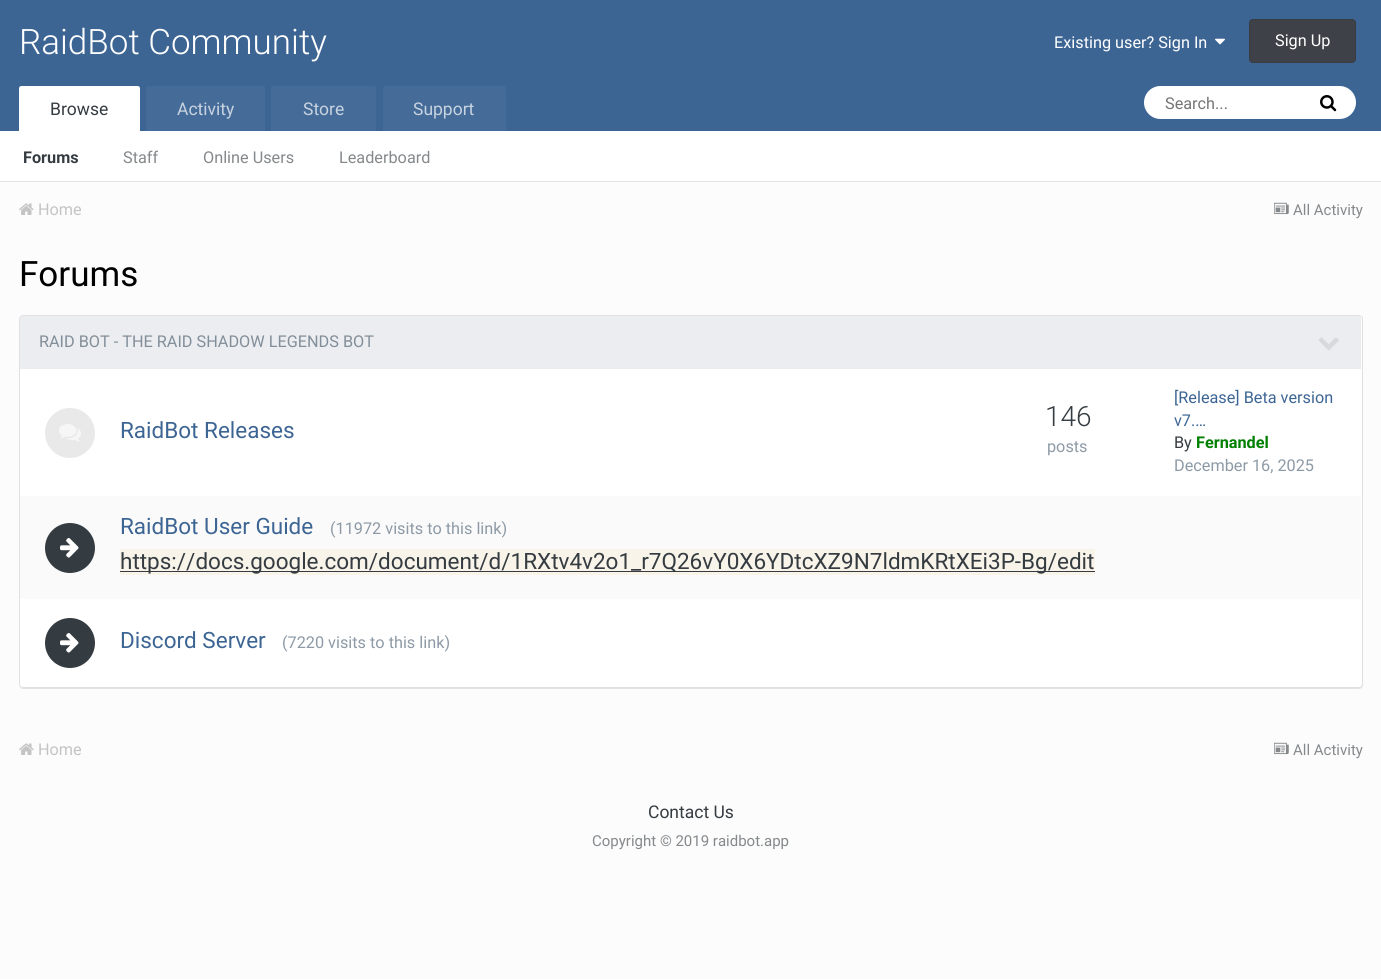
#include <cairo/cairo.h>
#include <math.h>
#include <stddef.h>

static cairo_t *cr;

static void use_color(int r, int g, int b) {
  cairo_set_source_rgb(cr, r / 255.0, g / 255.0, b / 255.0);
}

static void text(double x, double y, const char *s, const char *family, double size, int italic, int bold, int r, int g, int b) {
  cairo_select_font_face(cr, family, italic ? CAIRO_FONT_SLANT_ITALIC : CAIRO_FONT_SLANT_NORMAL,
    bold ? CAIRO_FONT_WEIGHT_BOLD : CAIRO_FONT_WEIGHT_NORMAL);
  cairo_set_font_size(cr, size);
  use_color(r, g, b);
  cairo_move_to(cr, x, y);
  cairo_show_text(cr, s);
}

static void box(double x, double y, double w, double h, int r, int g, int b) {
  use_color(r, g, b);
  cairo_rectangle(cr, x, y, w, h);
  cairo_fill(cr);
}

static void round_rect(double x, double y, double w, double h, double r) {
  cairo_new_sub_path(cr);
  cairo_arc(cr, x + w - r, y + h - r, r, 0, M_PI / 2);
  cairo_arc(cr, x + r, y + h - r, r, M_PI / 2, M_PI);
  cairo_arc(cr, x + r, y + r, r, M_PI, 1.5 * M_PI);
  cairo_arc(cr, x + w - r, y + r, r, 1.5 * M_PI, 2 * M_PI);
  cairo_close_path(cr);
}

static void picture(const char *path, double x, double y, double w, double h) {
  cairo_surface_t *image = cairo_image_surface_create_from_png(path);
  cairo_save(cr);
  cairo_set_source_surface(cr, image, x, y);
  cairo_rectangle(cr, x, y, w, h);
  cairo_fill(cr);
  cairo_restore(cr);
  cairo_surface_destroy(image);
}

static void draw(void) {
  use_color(252, 252, 252);
  cairo_paint(cr);
  box(0, 181, 1381, 1, 227, 227, 227);
  box(0, 0, 1381, 131, 61, 101, 148);
  picture("img_01.png", 1215, 38, 10, 7);
  use_color(62, 65, 72);
  round_rect(1249, 19, 107, 44, 4);
  cairo_fill(cr);
  round_rect(1249.5, 19.5, 106, 43, 3.5);
  cairo_set_source_rgba(cr, 0, 0, 0, 0.1);
  cairo_set_line_width(cr, 1);
  cairo_stroke(cr);
  box(0, 131, 1381, 50, 255, 255, 255);
  cairo_new_path(cr);
  cairo_move_to(cr, 21.5, 86);
  cairo_line_to(cr, 137.5, 86);
  cairo_curve_to(cr, 139, 86, 140, 87, 140, 88.5);
  cairo_line_to(cr, 140, 131);
  cairo_line_to(cr, 19, 131);
  cairo_line_to(cr, 19, 88.5);
  cairo_curve_to(cr, 19, 87, 20, 86, 21.5, 86);
  cairo_close_path(cr);
  cairo_fill(cr);
  use_color(69, 107, 152);
  cairo_new_path(cr);
  cairo_move_to(cr, 148.5, 86);
  cairo_line_to(cr, 262.5, 86);
  cairo_curve_to(cr, 264, 86, 265, 87, 265, 88.5);
  cairo_line_to(cr, 265, 131);
  cairo_line_to(cr, 146, 131);
  cairo_line_to(cr, 146, 88.5);
  cairo_curve_to(cr, 146, 87, 147, 86, 148.5, 86);
  cairo_close_path(cr);
  cairo_fill(cr);
  cairo_new_path(cr);
  cairo_move_to(cr, 273.5, 86);
  cairo_line_to(cr, 373.5, 86);
  cairo_curve_to(cr, 375, 86, 376, 87, 376, 88.5);
  cairo_line_to(cr, 376, 131);
  cairo_line_to(cr, 271, 131);
  cairo_line_to(cr, 271, 88.5);
  cairo_curve_to(cr, 271, 87, 272, 86, 273.5, 86);
  cairo_close_path(cr);
  cairo_fill(cr);
  cairo_new_path(cr);
  cairo_move_to(cr, 385.5, 86);
  cairo_line_to(cr, 503.5, 86);
  cairo_curve_to(cr, 505, 86, 506, 87, 506, 88.5);
  cairo_line_to(cr, 506, 131);
  cairo_line_to(cr, 383, 131);
  cairo_line_to(cr, 383, 88.5);
  cairo_curve_to(cr, 383, 87, 384, 86, 385.5, 86);
  cairo_close_path(cr);
  cairo_fill(cr);
  use_color(255, 255, 255);
  round_rect(1144, 86, 212, 33, 16.5);
  cairo_fill(cr);
  picture("img_02.png", 1320, 95, 17, 17);
  picture("img_03.png", 19, 203, 15, 12);
  picture("img_04.png", 1274, 202, 15, 13);
  use_color(227, 227, 227);
  cairo_new_path(cr);
  cairo_move_to(cr, 19, 685);
  cairo_curve_to(cr, 19, 687, 21, 689, 23, 689);
  cairo_line_to(cr, 1359, 689);
  cairo_curve_to(cr, 1361, 689, 1363, 687, 1363, 685);
  cairo_line_to(cr, 1363, 320);
  cairo_line_to(cr, 1362, 318);
  cairo_line_to(cr, 1362, 684);
  cairo_curve_to(cr, 1362, 686, 1361, 688, 1359, 688);
  cairo_line_to(cr, 22, 688);
  cairo_curve_to(cr, 21, 688, 20, 687, 19, 685);
  cairo_close_path(cr);
  cairo_fill(cr);
  use_color(255, 255, 255);
  round_rect(19.5, 315.5, 1343, 372, 3.5);
  cairo_fill_preserve(cr);
  use_color(224, 224, 224);
  cairo_stroke(cr);
  use_color(235, 237, 240);
  cairo_new_path(cr);
  cairo_move_to(cr, 22.5, 316);
  cairo_line_to(cr, 1358.5, 316);
  cairo_curve_to(cr, 1360, 316, 1361, 317, 1361, 318.5);
  cairo_line_to(cr, 1361, 369);
  cairo_line_to(cr, 20, 369);
  cairo_line_to(cr, 20, 318.5);
  cairo_curve_to(cr, 20, 317, 21, 316, 22.5, 316);
  cairo_close_path(cr);
  cairo_fill(cr);
  picture("img_05.png", 1318, 337, 21, 14);
  box(20, 684, 1, 2, 255, 255, 255);
  use_color(233, 233, 233);
  cairo_arc(cr, 70, 433, 25, 0, 2 * M_PI);
  cairo_fill(cr);
  picture("img_06.png", 59, 424, 22, 18);
  box(20, 496, 1341, 103, 250, 250, 250);
  use_color(53, 60, 65);
  cairo_arc(cr, 70, 548, 25, 0, 2 * M_PI);
  cairo_fill(cr);
  picture("img_07.png", 60, 538, 19, 20);
  box(120, 549, 975, 26, 249, 244, 234);
  box(120, 571, 975, 1, 53, 60, 65);
  cairo_arc(cr, 70, 643, 25, 0, 2 * M_PI);
  cairo_fill(cr);
  picture("img_07.png", 60, 633, 19, 20);
  picture("img_03.png", 19, 743, 15, 12);
  picture("img_04.png", 1274, 742, 15, 13);
  text(19, 54, "RaidBot Community", "Roboto Light", 35, 0, 0, 255, 255, 255);
  text(1054, 48, "Existing user? Sign In", "Roboto", 16.25, 0, 0, 255, 255, 255);
  text(1275, 46, "Sign Up", "Roboto", 16.25, 0, 0, 255, 255, 255);
  text(50, 115, "Browse", "Roboto", 17.5, 0, 0, 53, 60, 65);
  text(23, 163, "Forums", "Roboto", 16.25, 0, 1, 53, 60, 65);
  text(123, 163, "Staff", "Roboto", 16.25, 0, 0, 133, 137, 140);
  text(203, 163, "Online Users", "Roboto", 16.25, 0, 0, 133, 137, 140);
  text(339, 163, "Leaderboard", "Roboto", 16.25, 0, 0, 133, 137, 140);
  text(177, 115, "Activity", "Roboto", 17.5, 0, 0, 199, 211, 224);
  text(303, 115, "Store", "Roboto", 17.5, 0, 0, 199, 211, 224);
  text(413, 115, "Support", "Roboto", 17.5, 0, 0, 199, 211, 224);
  text(1165, 109, "Search...", "Roboto", 16.25, 0, 0, 117, 117, 117);
  text(38, 215, "Home", "Roboto", 16.25, 0, 0, 196, 196, 196);
  text(1293, 215, "All Activity", "Roboto", 15, 0, 0, 133, 137, 140);
  text(19, 286, "Forums", "Roboto", 35, 0, 0, 0, 0, 0);
  text(39, 347, "RAID BOT - THE RAID SHADOW LEGENDS BOT", "Roboto", 16.25, 0, 0, 130, 142, 153);
  text(120, 438, "RaidBot Releases", "Roboto", 22.5, 0, 0, 61, 101, 148);
  text(1045, 426, "146", "Roboto Light", 28, 0, 0, 53, 60, 65);
  text(1047, 452, "posts", "Roboto", 16.25, 0, 0, 141, 154, 166);
  text(1174, 403, "[Release] Beta version", "Roboto", 16.25, 0, 0, 61, 101, 148);
  text(1174, 426, "v7.…", "Roboto", 16.25, 0, 0, 61, 101, 148);
  text(1174, 448, "By", "Roboto", 16.25, 0, 0, 53, 60, 65);
  text(1196, 448, "Fernandel", "Roboto", 16.25, 0, 1, 0, 128, 0);
  text(1174, 471, "December 16, 2025", "Roboto", 16.25, 0, 0, 141, 154, 166);
  text(120, 534, "RaidBot User Guide", "Roboto", 22.5, 0, 0, 61, 101, 148);
  text(330, 534, "(11972 visits to this link)", "Roboto", 16.25, 0, 0, 141, 154, 166);
  text(120, 569, "https://docs.google.com/document/d/1RXtv4v2o1_r7Q26vY0X6YDtcXZ9N7ldmKRtXEi3P-Bg/edit", "Roboto", 22.5, 0, 0, 53, 60, 65);
  text(120, 648, "Discord Server", "Roboto", 22.5, 0, 0, 61, 101, 148);
  text(282, 648, "(7220 visits to this link)", "Roboto", 16.25, 0, 0, 141, 154, 166);
  text(38, 755, "Home", "Roboto", 16.25, 0, 0, 196, 196, 196);
  text(1293, 755, "All Activity", "Roboto", 15, 0, 0, 133, 137, 140);
  text(648, 818, "Contact Us", "Roboto", 17.5, 0, 0, 53, 60, 65);
  text(592, 846, "Copyright © 2019 raidbot.app", "Roboto", 15, 0, 0, 133, 137, 140);
}

int main(void) {
  cairo_surface_t *surface = cairo_image_surface_create(CAIRO_FORMAT_RGB24, 1381, 979);
  cr = cairo_create(surface);
  cairo_font_options_t *options = cairo_font_options_create();
  cairo_font_options_set_hint_metrics(options, CAIRO_HINT_METRICS_OFF);
  cairo_font_options_set_hint_style(options, CAIRO_HINT_STYLE_NONE);
  cairo_set_font_options(cr, options);
  cairo_set_miter_limit(cr, 4);
  draw();
  cairo_surface_write_to_png(surface, "out.png");
  cairo_font_options_destroy(options);
  cairo_destroy(cr);
  cairo_surface_destroy(surface);
  return 0;
}
